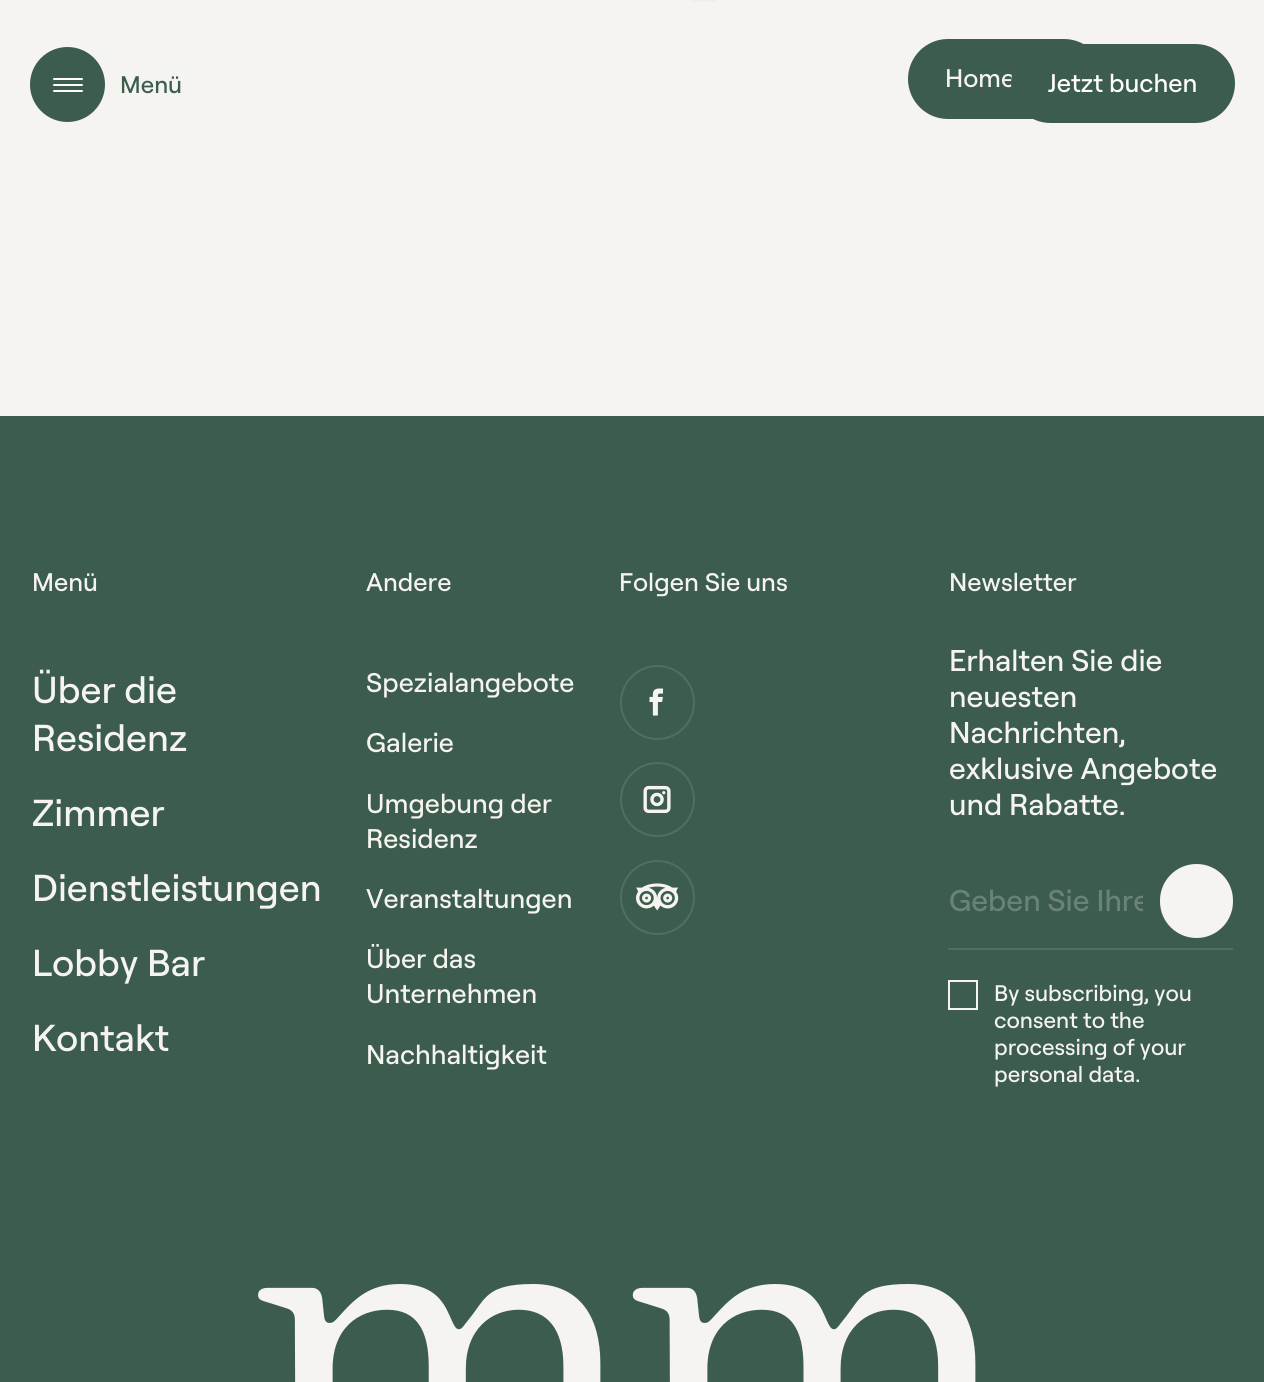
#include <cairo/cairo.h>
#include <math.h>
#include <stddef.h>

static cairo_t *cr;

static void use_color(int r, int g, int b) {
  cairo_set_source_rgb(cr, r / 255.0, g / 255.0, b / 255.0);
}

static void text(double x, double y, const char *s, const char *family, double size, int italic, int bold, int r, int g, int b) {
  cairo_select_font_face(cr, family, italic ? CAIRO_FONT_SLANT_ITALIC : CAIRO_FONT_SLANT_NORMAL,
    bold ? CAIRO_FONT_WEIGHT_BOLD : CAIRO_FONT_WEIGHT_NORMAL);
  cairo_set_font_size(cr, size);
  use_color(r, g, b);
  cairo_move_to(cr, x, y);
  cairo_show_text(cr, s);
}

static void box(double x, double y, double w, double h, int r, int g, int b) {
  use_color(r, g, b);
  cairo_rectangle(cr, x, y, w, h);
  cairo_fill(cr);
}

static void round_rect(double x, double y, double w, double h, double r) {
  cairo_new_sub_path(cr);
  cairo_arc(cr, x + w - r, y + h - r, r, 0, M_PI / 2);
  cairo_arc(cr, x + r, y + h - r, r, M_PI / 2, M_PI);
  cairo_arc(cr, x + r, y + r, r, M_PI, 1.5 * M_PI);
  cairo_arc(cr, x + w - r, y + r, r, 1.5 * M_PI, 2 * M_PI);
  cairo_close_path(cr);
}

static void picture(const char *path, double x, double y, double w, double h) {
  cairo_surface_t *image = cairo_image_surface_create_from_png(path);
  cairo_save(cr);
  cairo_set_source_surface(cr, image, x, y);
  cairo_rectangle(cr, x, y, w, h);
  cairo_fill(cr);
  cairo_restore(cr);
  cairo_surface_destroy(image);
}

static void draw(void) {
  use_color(246, 244, 240);
  cairo_paint(cr);
  box(691, 0, 25, 2, 241, 239, 235);
  use_color(60, 93, 78);
  round_rect(909, 40, 194, 78, 39);
  cairo_fill_preserve(cr);
  cairo_stroke(cr);
  box(0, 416, 1264, 966, 60, 93, 78);
  cairo_arc(cr, 657.5, 702.5, 36.5, 0, 2 * M_PI);
  use_color(81, 110, 96);
  cairo_stroke(cr);
  picture("img_01.png", 649, 688, 15, 28);
  cairo_arc(cr, 657.5, 799.5, 36.5, 0, 2 * M_PI);
  cairo_stroke(cr);
  picture("img_02.png", 643, 785, 28, 28);
  cairo_arc(cr, 657.5, 897.5, 36.5, 0, 2 * M_PI);
  cairo_stroke(cr);
  picture("img_03.png", 636, 883, 43, 28);
  box(948, 948, 285, 2, 81, 110, 96);
  use_color(246, 244, 240);
  round_rect(1161, 865, 71, 72, 35.5);
  cairo_fill_preserve(cr);
  cairo_stroke(cr);
  cairo_rectangle(cr, 949, 981, 28, 28);
  cairo_stroke(cr);
  picture("img_04.png", 258, 1284, 718, 98);
  use_color(60, 93, 78);
  cairo_arc(cr, 67.5, 84.5, 37.5, 0, 2 * M_PI);
  cairo_fill(cr);
  use_color(255, 255, 255);
  round_rect(53, 78, 30, 2, 1);
  cairo_fill(cr);
  round_rect(53, 84, 30, 2, 1);
  cairo_fill(cr);
  round_rect(53, 90, 30, 2, 1);
  cairo_fill(cr);
  text(945, 87, "Home", "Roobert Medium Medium", 25.5, 0, 0, 246, 244, 240);
  text(32, 591, "Menü", "Roobert Medium Medium", 25.5, 0, 0, 246, 244, 240);
  text(32, 703, "Über die", "Roobert Medium Medium", 37.5, 0, 0, 246, 244, 240);
  text(32, 751, "Residenz", "Roobert Medium Medium", 37.5, 0, 0, 246, 244, 240);
  text(32, 826, "Zimmer", "Roobert Medium Medium", 37.5, 0, 0, 246, 244, 240);
  text(32, 901, "Dienstleistungen", "Roobert Medium Medium", 37.5, 0, 0, 246, 244, 240);
  text(32, 976, "Lobby Bar", "Roobert Medium Medium", 37.5, 0, 0, 246, 244, 240);
  text(32, 1051, "Kontakt", "Roobert Medium Medium", 37.5, 0, 0, 246, 244, 240);
  text(366, 591, "Andere", "Roobert Medium Medium", 25.5, 0, 0, 246, 244, 240);
  text(366, 692, "Spezialangebote", "Roobert Medium Medium", 27, 0, 0, 246, 244, 240);
  text(366, 752, "Galerie", "Roobert Medium Medium", 27, 0, 0, 246, 244, 240);
  text(366, 813, "Umgebung der", "Roobert Medium Medium", 27, 0, 0, 246, 244, 240);
  text(366, 848, "Residenz", "Roobert Medium Medium", 27, 0, 0, 246, 244, 240);
  text(366, 908, "Veranstaltungen", "Roobert Medium Medium", 27, 0, 0, 246, 244, 240);
  text(366, 968, "Über das", "Roobert Medium Medium", 27, 0, 0, 246, 244, 240);
  text(366, 1003, "Unternehmen", "Roobert Medium Medium", 27, 0, 0, 246, 244, 240);
  text(366, 1064, "Nachhaltigkeit", "Roobert Medium Medium", 27, 0, 0, 246, 244, 240);
  text(619, 591, "Folgen Sie uns", "Roobert Medium Medium", 25.5, 0, 0, 246, 244, 240);
  text(949, 591, "Newsletter", "Roobert Medium Medium", 25.5, 0, 0, 246, 244, 240);
  text(949, 671, "Erhalten Sie die", "Roobert Medium Medium", 30, 0, 0, 246, 244, 240);
  text(949, 707, "neuesten", "Roobert Medium Medium", 30, 0, 0, 246, 244, 240);
  text(949, 743, "Nachrichten,", "Roobert Medium Medium", 30, 0, 0, 246, 244, 240);
  text(949, 779, "exklusive Angebote", "Roobert Medium Medium", 30, 0, 0, 246, 244, 240);
  text(949, 815, "und Rabatte.", "Roobert Medium Medium", 30, 0, 0, 246, 244, 240);
  cairo_save(cr);
  cairo_rectangle(cr, 948, 881, 195, 37);
  cairo_clip(cr);
  text(949, 911, "Geben Sie Ihre", "Roobert Medium Medium", 30, 0, 0, 107, 131, 119);
  cairo_restore(cr);
  text(994, 1001, "By subscribing, you", "Roobert Medium Medium", 22.5, 0, 0, 246, 244, 240);
  text(994, 1028, "consent to the", "Roobert Medium Medium", 22.5, 0, 0, 246, 244, 240);
  text(994, 1055, "processing of your", "Roobert Medium Medium", 22.5, 0, 0, 246, 244, 240);
  text(994, 1082, "personal data.", "Roobert Medium Medium", 22.5, 0, 0, 246, 244, 240);
  text(120, 93, "Menü", "Roobert Medium Medium", 24, 0, 0, 60, 93, 78);
  round_rect(1012, 45, 222, 77, 38.5);
  cairo_fill_preserve(cr);
  cairo_stroke(cr);
  text(1048, 92, "Jetzt buchen", "Roobert Medium Medium", 25.5, 0, 0, 255, 255, 255);
}

int main(void) {
  cairo_surface_t *surface = cairo_image_surface_create(CAIRO_FORMAT_RGB24, 1264, 1382);
  cr = cairo_create(surface);
  cairo_font_options_t *options = cairo_font_options_create();
  cairo_font_options_set_hint_metrics(options, CAIRO_HINT_METRICS_OFF);
  cairo_font_options_set_hint_style(options, CAIRO_HINT_STYLE_NONE);
  cairo_set_font_options(cr, options);
  cairo_set_miter_limit(cr, 4);
  draw();
  cairo_surface_write_to_png(surface, "out.png");
  cairo_font_options_destroy(options);
  cairo_destroy(cr);
  cairo_surface_destroy(surface);
  return 0;
}
